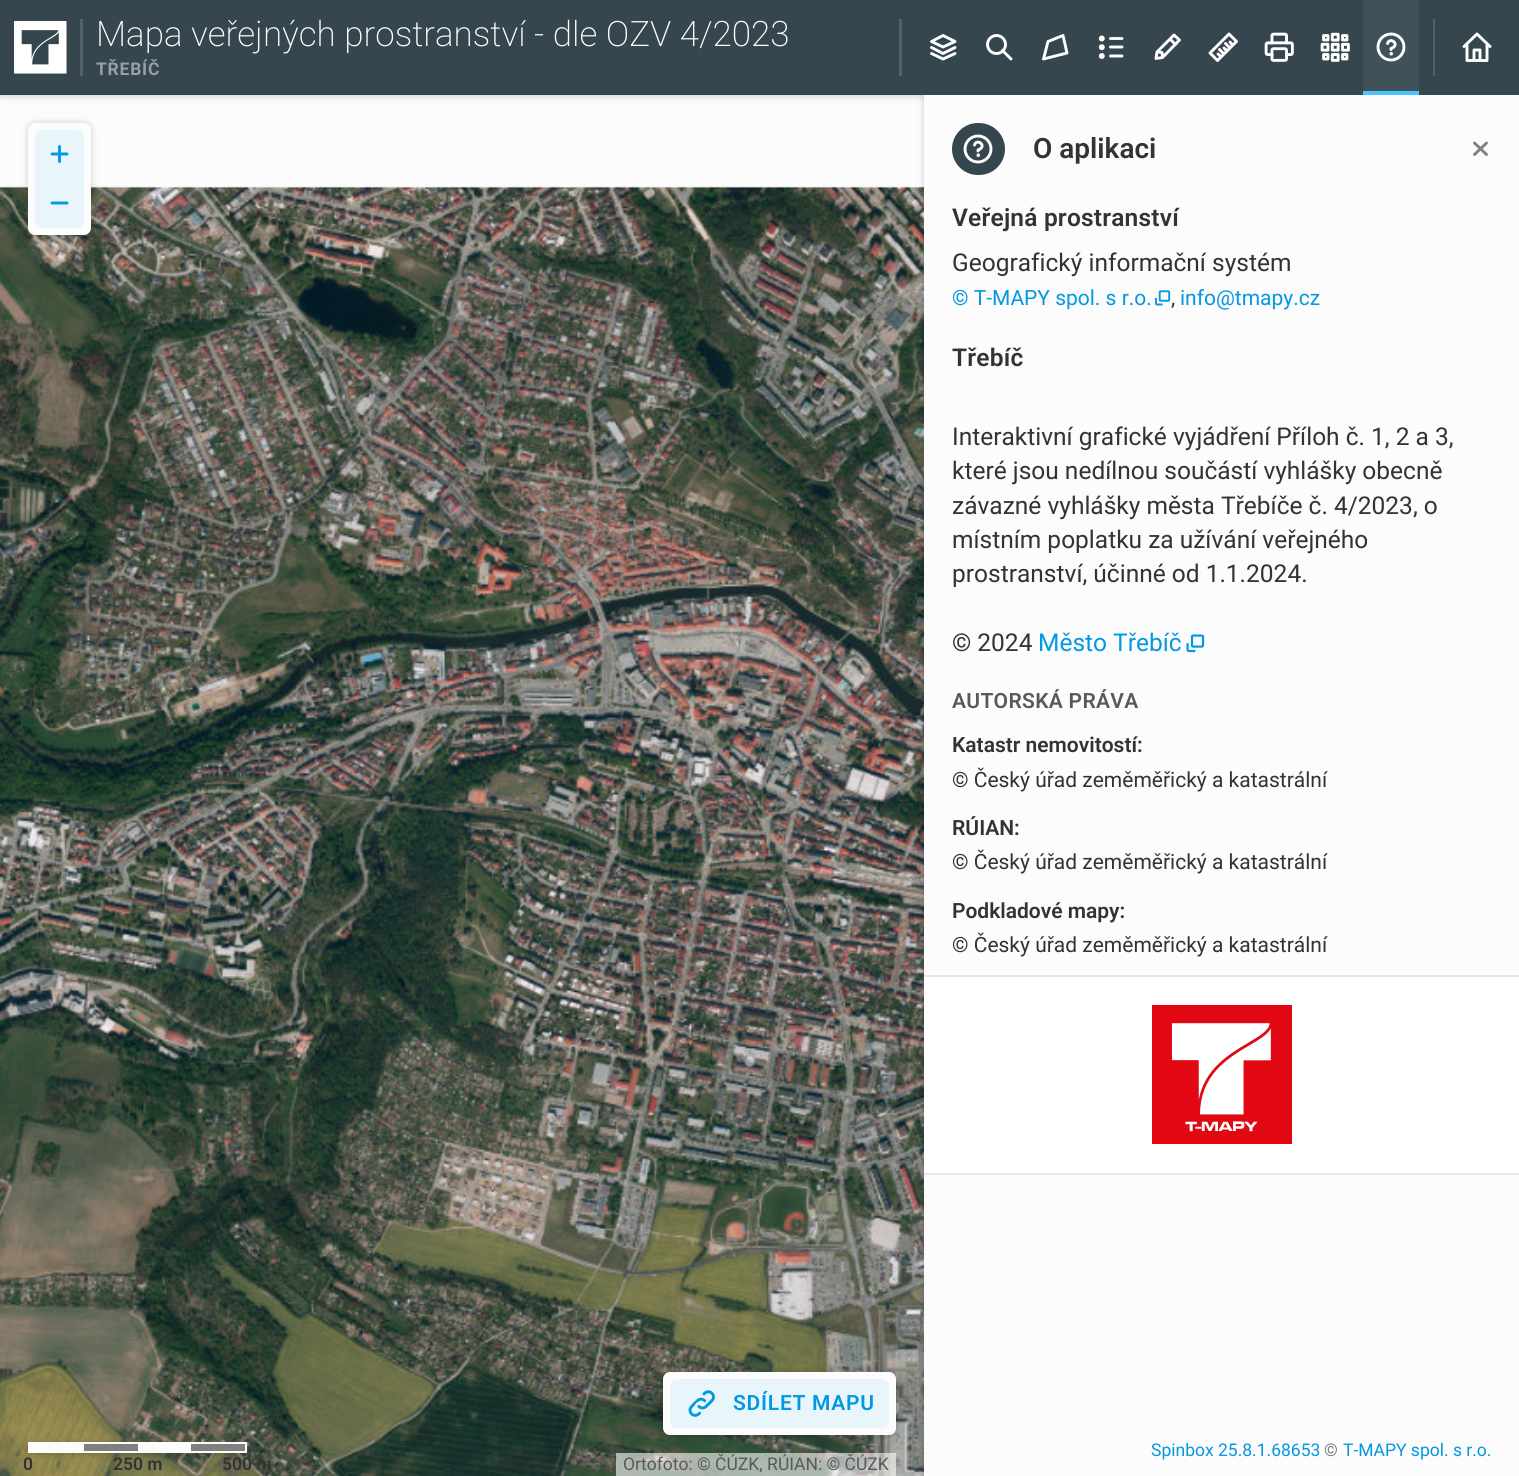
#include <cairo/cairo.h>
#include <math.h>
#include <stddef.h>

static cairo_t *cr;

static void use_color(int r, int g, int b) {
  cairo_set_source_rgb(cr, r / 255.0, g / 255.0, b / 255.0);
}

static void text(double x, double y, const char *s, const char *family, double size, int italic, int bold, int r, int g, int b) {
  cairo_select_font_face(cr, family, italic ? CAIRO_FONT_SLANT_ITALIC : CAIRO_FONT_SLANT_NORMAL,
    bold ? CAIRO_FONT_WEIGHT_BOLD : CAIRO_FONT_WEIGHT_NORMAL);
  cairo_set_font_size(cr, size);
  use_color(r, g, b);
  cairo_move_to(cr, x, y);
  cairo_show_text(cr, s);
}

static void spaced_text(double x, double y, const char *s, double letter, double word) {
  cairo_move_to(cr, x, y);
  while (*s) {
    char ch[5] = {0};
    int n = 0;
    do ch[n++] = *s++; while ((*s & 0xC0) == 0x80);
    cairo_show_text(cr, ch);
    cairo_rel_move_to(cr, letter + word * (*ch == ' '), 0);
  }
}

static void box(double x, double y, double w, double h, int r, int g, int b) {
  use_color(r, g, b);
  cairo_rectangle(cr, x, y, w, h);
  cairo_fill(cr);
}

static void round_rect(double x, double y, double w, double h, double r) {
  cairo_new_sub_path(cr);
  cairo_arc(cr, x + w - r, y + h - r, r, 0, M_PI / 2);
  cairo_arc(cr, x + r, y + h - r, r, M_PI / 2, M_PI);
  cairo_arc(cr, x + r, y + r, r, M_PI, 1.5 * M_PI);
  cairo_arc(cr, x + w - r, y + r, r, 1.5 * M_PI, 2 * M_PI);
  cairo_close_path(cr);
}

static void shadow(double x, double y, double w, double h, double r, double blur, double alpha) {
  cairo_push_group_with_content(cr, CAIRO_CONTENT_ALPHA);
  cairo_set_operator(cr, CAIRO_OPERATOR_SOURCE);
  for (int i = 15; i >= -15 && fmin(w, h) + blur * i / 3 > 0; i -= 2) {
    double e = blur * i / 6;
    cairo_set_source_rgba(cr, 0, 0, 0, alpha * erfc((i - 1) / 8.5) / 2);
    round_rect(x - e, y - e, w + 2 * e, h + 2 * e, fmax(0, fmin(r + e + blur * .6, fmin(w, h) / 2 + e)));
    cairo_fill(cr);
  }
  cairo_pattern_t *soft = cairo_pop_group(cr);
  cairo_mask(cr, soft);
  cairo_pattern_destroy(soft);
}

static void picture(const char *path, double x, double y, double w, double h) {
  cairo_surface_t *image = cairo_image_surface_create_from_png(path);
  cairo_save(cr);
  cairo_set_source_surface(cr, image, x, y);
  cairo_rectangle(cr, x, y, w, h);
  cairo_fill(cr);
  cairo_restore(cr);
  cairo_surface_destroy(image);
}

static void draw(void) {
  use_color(252, 252, 252);
  cairo_paint(cr);
  use_color(0, 0, 0);
  shadow(0, 2, 1519, 94, 0, 3.5, 0.2);
  box(0, 0, 1519, 95, 54, 70, 78);
  picture("img_01.png", 14, 21, 53, 53);
  box(80, 19, 3, 57, 82, 99, 107);
  box(899, 19, 3, 57, 82, 99, 107);
  cairo_new_path(cr);
  cairo_move_to(cr, 955, 53.5);
  cairo_line_to(cr, 943, 59);
  cairo_line_to(cr, 931.5, 53.5);
  cairo_move_to(cr, 955, 47.5);
  cairo_line_to(cr, 943, 53.5);
  cairo_line_to(cr, 931.5, 47.5);
  cairo_move_to(cr, 943, 35.5);
  cairo_line_to(cr, 955, 41.5);
  cairo_line_to(cr, 943, 47);
  cairo_line_to(cr, 931.5, 41.5);
  cairo_close_path(cr);
  use_color(255, 255, 255);
  cairo_set_line_width(cr, 2.9);
  cairo_set_line_cap(cr, CAIRO_LINE_CAP_ROUND);
  cairo_set_line_join(cr, CAIRO_LINE_JOIN_ROUND);
  cairo_stroke(cr);
  cairo_arc(cr, 996.5, 44.5, 9, 0, 2 * M_PI);
  cairo_set_line_cap(cr, CAIRO_LINE_CAP_BUTT);
  cairo_set_line_join(cr, CAIRO_LINE_JOIN_MITER);
  cairo_stroke(cr);
  cairo_new_path(cr);
  cairo_move_to(cr, 1011, 59);
  cairo_line_to(cr, 1002.5, 50.5);
  cairo_set_line_cap(cr, CAIRO_LINE_CAP_ROUND);
  cairo_set_line_join(cr, CAIRO_LINE_JOIN_ROUND);
  cairo_stroke(cr);
  cairo_new_path(cr);
  cairo_move_to(cr, 1063, 35.5);
  cairo_line_to(cr, 1048, 41.5);
  cairo_line_to(cr, 1043.5, 59);
  cairo_line_to(cr, 1067, 53);
  cairo_close_path(cr);
  cairo_stroke(cr);
  cairo_arc(cr, 1101.8, 56, 1.5, 0, 2 * M_PI);
  cairo_set_line_cap(cr, CAIRO_LINE_CAP_BUTT);
  cairo_set_line_join(cr, CAIRO_LINE_JOIN_MITER);
  cairo_stroke(cr);
  cairo_arc(cr, 1101.8, 47.2, 1.5, 0, 2 * M_PI);
  cairo_stroke(cr);
  cairo_arc(cr, 1101.8, 38.5, 1.5, 0, 2 * M_PI);
  cairo_stroke(cr);
  cairo_new_path(cr);
  cairo_move_to(cr, 1110.5, 38.5);
  cairo_line_to(cr, 1122, 38.5);
  cairo_move_to(cr, 1110.5, 47);
  cairo_line_to(cr, 1122, 47);
  cairo_move_to(cr, 1110.5, 56);
  cairo_line_to(cr, 1122, 56);
  cairo_set_line_cap(cr, CAIRO_LINE_CAP_ROUND);
  cairo_set_line_join(cr, CAIRO_LINE_JOIN_ROUND);
  cairo_stroke(cr);
  cairo_new_path(cr);
  cairo_move_to(cr, 1162.5, 57.5);
  cairo_line_to(cr, 1156, 58.5);
  cairo_line_to(cr, 1157, 52);
  cairo_line_to(cr, 1174, 35);
  cairo_line_to(cr, 1179.5, 40);
  cairo_close_path(cr);
  cairo_move_to(cr, 1170, 39);
  cairo_line_to(cr, 1175.5, 44.5);
  cairo_move_to(cr, 1157, 52);
  cairo_line_to(cr, 1162, 52.5);
  cairo_line_to(cr, 1162.5, 57.5);
  cairo_stroke(cr);
  cairo_new_path(cr);
  cairo_move_to(cr, 1236.5, 41.5);
  cairo_line_to(cr, 1217.5, 60.5);
  cairo_line_to(cr, 1210, 53);
  cairo_line_to(cr, 1229, 34);
  cairo_close_path(cr);
  cairo_move_to(cr, 1224, 48);
  cairo_line_to(cr, 1227, 51);
  cairo_move_to(cr, 1218, 54);
  cairo_line_to(cr, 1221, 56.5);
  cairo_move_to(cr, 1225.5, 43.5);
  cairo_line_to(cr, 1230, 48);
  cairo_move_to(cr, 1219.5, 49.5);
  cairo_line_to(cr, 1224, 54);
  cairo_move_to(cr, 1230, 42);
  cairo_line_to(cr, 1232.5, 45);
  cairo_stroke(cr);
  picture("img_02.png", 1264, 32, 30, 30);
  picture("img_03.png", 1320, 32, 30, 30);
  box(1363, 0, 56, 91, 63, 82, 90);
  cairo_arc(cr, 1391, 47, 13, 0, 2 * M_PI);
  use_color(255, 255, 255);
  cairo_set_line_cap(cr, CAIRO_LINE_CAP_BUTT);
  cairo_set_line_join(cr, CAIRO_LINE_JOIN_MITER);
  cairo_stroke(cr);
  cairo_new_path(cr);
  cairo_move_to(cr, 1391, 53.5);
  cairo_line_to(cr, 1391.5, 53.5);
  cairo_line_to(cr, 1391.5, 54);
  cairo_line_to(cr, 1391, 54);
  cairo_close_path(cr);
  cairo_move_to(cr, 1387.5, 43.5);
  cairo_curve_to(cr, 1390, 36, 1401, 45, 1391, 48.5);
  cairo_line_to(cr, 1391, 49.5);
  cairo_set_line_cap(cr, CAIRO_LINE_CAP_ROUND);
  cairo_set_line_join(cr, CAIRO_LINE_JOIN_ROUND);
  cairo_stroke(cr);
  box(1363, 91, 56, 4, 78, 195, 253);
  picture("img_04.png", 1433, 19, 2, 57);
  cairo_new_path(cr);
  cairo_move_to(cr, 1464, 46.5);
  cairo_line_to(cr, 1477, 34);
  cairo_line_to(cr, 1490, 46.5);
  cairo_move_to(cr, 1487, 44.5);
  cairo_line_to(cr, 1487, 60.5);
  cairo_line_to(cr, 1467, 60.5);
  cairo_line_to(cr, 1467, 44.5);
  cairo_move_to(cr, 1474, 60.5);
  cairo_line_to(cr, 1474, 50);
  cairo_line_to(cr, 1480, 50);
  cairo_line_to(cr, 1480, 60.5);
  use_color(255, 255, 255);
  cairo_stroke(cr);
  picture("img_09.png", 0, 186, 924, 1290);
  use_color(0, 0, 0);
  shadow(28, 123, 63, 112, 7, 3.5, 0.2);
  use_color(252, 252, 252);
  round_rect(28, 123, 63, 112, 7);
  cairo_fill(cr);
  use_color(232, 246, 252);
  cairo_new_path(cr);
  cairo_move_to(cr, 42, 130);
  cairo_line_to(cr, 77, 130);
  cairo_curve_to(cr, 81, 130, 84, 133, 84, 137);
  cairo_line_to(cr, 84, 179);
  cairo_line_to(cr, 35, 179);
  cairo_line_to(cr, 35, 137);
  cairo_curve_to(cr, 35, 133, 38, 130, 42, 130);
  cairo_close_path(cr);
  cairo_fill(cr);
  cairo_new_path(cr);
  cairo_move_to(cr, 35, 179);
  cairo_line_to(cr, 84, 179);
  cairo_line_to(cr, 84, 221);
  cairo_curve_to(cr, 84, 225, 81, 228, 77, 228);
  cairo_line_to(cr, 42, 228);
  cairo_curve_to(cr, 38, 228, 35, 225, 35, 221);
  cairo_close_path(cr);
  cairo_fill(cr);
  cairo_new_path(cr);
  cairo_move_to(cr, 59.5, 146.5);
  cairo_line_to(cr, 59.5, 161.5);
  cairo_move_to(cr, 52, 154);
  cairo_line_to(cr, 67, 154);
  cairo_move_to(cr, 52, 203);
  cairo_line_to(cr, 67, 203);
  use_color(3, 152, 226);
  cairo_stroke(cr);
  use_color(0, 0, 0);
  shadow(663, 1372, 233, 63, 7, 3.5, 0.2);
  use_color(252, 252, 252);
  round_rect(663, 1372, 233, 63, 7);
  cairo_fill(cr);
  use_color(232, 246, 252);
  round_rect(670, 1379, 219, 49, 7);
  cairo_fill(cr);
  picture("img_05.png", 688, 1390, 27, 27);
  use_color(0, 0, 0);
  shadow(28, 1444, 219, 10, 0, 3.5, 0.2);
  box(30, 1444, 54, 7, 252, 252, 252);
  box(84, 1444, 54, 7, 128, 128, 128);
  box(138, 1444, 53, 7, 252, 252, 252);
  box(191, 1444, 54, 7, 128, 128, 128);
  cairo_rectangle(cr, 29, 1443, 217, 9);
  use_color(252, 252, 252);
  cairo_set_line_width(cr, 2);
  cairo_set_line_cap(cr, CAIRO_LINE_CAP_BUTT);
  cairo_set_line_join(cr, CAIRO_LINE_JOIN_MITER);
  cairo_stroke(cr);
  cairo_set_source_rgba(cr, 0.988, 0.988, 0.988, 0.6);
  cairo_rectangle(cr, 616, 1453, 280, 23);
  cairo_fill(cr);
  cairo_save(cr);
  cairo_rectangle(cr, 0, 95, 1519, 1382);
  cairo_clip(cr);
  use_color(0, 0, 0);
  shadow(924, 95, 595, 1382, 0, 3.5, 0.2);
  cairo_restore(cr);
  box(924, 95, 595, 1381, 252, 252, 252);
  use_color(54, 70, 78);
  round_rect(952, 123, 53, 52, 26);
  cairo_fill(cr);
  cairo_arc(cr, 978, 149, 13, 0, 2 * M_PI);
  use_color(255, 255, 255);
  cairo_set_line_width(cr, 2.9);
  cairo_stroke(cr);
  cairo_new_path(cr);
  cairo_move_to(cr, 978, 155);
  cairo_line_to(cr, 978.5, 155);
  cairo_line_to(cr, 978.5, 155.5);
  cairo_line_to(cr, 978, 155.5);
  cairo_close_path(cr);
  cairo_move_to(cr, 974.5, 145);
  cairo_curve_to(cr, 977, 137.5, 988, 146.5, 978, 150);
  cairo_line_to(cr, 978, 151);
  cairo_set_line_cap(cr, CAIRO_LINE_CAP_ROUND);
  cairo_set_line_join(cr, CAIRO_LINE_JOIN_ROUND);
  cairo_stroke(cr);
  cairo_new_path(cr);
  cairo_move_to(cr, 1474.5, 143);
  cairo_line_to(cr, 1486.5, 154.5);
  cairo_move_to(cr, 1474.5, 154.5);
  cairo_line_to(cr, 1486.5, 143);
  use_color(128, 128, 128);
  cairo_stroke(cr);
  picture("img_06.png", 1155, 290, 16, 16);
  picture("img_07.png", 1186, 634, 19, 19);
  box(924, 977, 595, 196, 255, 255, 255);
  box(924, 975, 595, 2, 230, 230, 230);
  box(924, 1173, 595, 2, 230, 230, 230);
  picture("img_08.png", 1152, 1005, 140, 139);
  text(96, 46, "Mapa veřejných prostranství - dle OZV 4/2023", "Roboto ExtraLight", 35, 0, 0, 255, 255, 255);
  cairo_select_font_face(cr, "Roboto", CAIRO_FONT_SLANT_NORMAL, CAIRO_FONT_WEIGHT_BOLD);
  cairo_set_font_size(cr, 17.5);
  use_color(150, 160, 166);
  spaced_text(96, 75, "TŘEBÍČ", 0.75, 0);
  cairo_select_font_face(cr, "Roboto SemiBold", CAIRO_FONT_SLANT_NORMAL, CAIRO_FONT_WEIGHT_NORMAL);
  cairo_set_font_size(cr, 21);
  use_color(3, 152, 226);
  spaced_text(733, 1410, "SDÍLET MAPU", 0.75, 0);
  text(23, 1470, "0", "Roboto SemiBold", 17.5, 0, 0, 51, 51, 51);
  text(113, 1470, "250 m", "Roboto SemiBold", 17.5, 0, 0, 51, 51, 51);
  text(222, 1470, "500 m", "Roboto SemiBold", 17.5, 0, 0, 51, 51, 51);
  text(623, 1470, "Ortofoto: © ČÚZK, RÚIAN: © ČÚZK", "Roboto", 17.5, 0, 0, 89, 89, 89);
  text(1033, 158, "O aplikaci", "Roboto SemiBold", 28, 0, 0, 51, 51, 51);
  cairo_set_font_size(cr, 24.5);
  spaced_text(952, 226, "Veřejná prostranství", 0.2, 0);
  text(952, 271, "Geografický informační systém", "Roboto", 24.5, 0, 0, 51, 51, 51);
  text(952, 305, "© T-MAPY spol. s r.o.", "Roboto", 21, 0, 0, 3, 152, 226);
  text(1171, 305, ",", "Roboto", 21, 0, 0, 51, 51, 51);
  text(1180, 305, "info@tmapy.cz", "Roboto", 21, 0, 0, 3, 152, 226);
  cairo_select_font_face(cr, "Roboto SemiBold", CAIRO_FONT_SLANT_NORMAL, CAIRO_FONT_WEIGHT_NORMAL);
  cairo_set_font_size(cr, 24.5);
  use_color(51, 51, 51);
  spaced_text(952, 366, "Třebíč", 0.2, 0);
  text(952, 445, "Interaktivní grafické vyjádření Příloh č. 1, 2 a 3,", "Roboto", 24.5, 0, 0, 51, 51, 51);
  text(952, 479, "které jsou nedílnou součástí vyhlášky obecně", "Roboto", 24.5, 0, 0, 51, 51, 51);
  text(952, 514, "závazné vyhlášky města Třebíče č. 4/2023, o", "Roboto", 24.5, 0, 0, 51, 51, 51);
  text(952, 548, "místním poplatku za užívání veřejného", "Roboto", 24.5, 0, 0, 51, 51, 51);
  text(952, 582, "prostranství, účinné od 1.1.2024.", "Roboto", 24.5, 0, 0, 51, 51, 51);
  text(952, 651, "© 2024", "Roboto", 24.5, 0, 0, 51, 51, 51);
  text(1038, 651, "Město Třebíč", "Roboto", 24.5, 0, 0, 3, 152, 226);
  cairo_select_font_face(cr, "Roboto SemiBold", CAIRO_FONT_SLANT_NORMAL, CAIRO_FONT_WEIGHT_NORMAL);
  cairo_set_font_size(cr, 21);
  use_color(89, 89, 89);
  spaced_text(952, 708, "AUTORSKÁ PRÁVA", 0.3, 0);
  text(952, 752, "Katastr nemovitostí:", "Roboto SemiBold", 21, 0, 0, 51, 51, 51);
  text(952, 787, "© Český úřad zeměměřický a katastrální", "Roboto", 21, 0, 0, 51, 51, 51);
  text(952, 835, "RÚIAN:", "Roboto SemiBold", 21, 0, 0, 51, 51, 51);
  text(952, 869, "© Český úřad zeměměřický a katastrální", "Roboto", 21, 0, 0, 51, 51, 51);
  text(952, 918, "Podkladové mapy:", "Roboto SemiBold", 21, 0, 0, 51, 51, 51);
  text(952, 952, "© Český úřad zeměměřický a katastrální", "Roboto", 21, 0, 0, 51, 51, 51);
  text(1151, 1456, "Spinbox 25.8.1.68653", "Roboto", 17.5, 0, 0, 3, 152, 226);
  text(1324, 1456, "©", "Roboto", 17.5, 0, 0, 128, 128, 128);
  text(1343, 1456, "T-MAPY spol. s r.o.", "Roboto", 17.5, 0, 0, 3, 152, 226);
}

int main(void) {
  cairo_surface_t *surface = cairo_image_surface_create(CAIRO_FORMAT_RGB24, 1519, 1476);
  cr = cairo_create(surface);
  cairo_font_options_t *options = cairo_font_options_create();
  cairo_font_options_set_hint_metrics(options, CAIRO_HINT_METRICS_OFF);
  cairo_font_options_set_hint_style(options, CAIRO_HINT_STYLE_NONE);
  cairo_set_font_options(cr, options);
  cairo_set_miter_limit(cr, 4);
  draw();
  cairo_surface_write_to_png(surface, "out.png");
  cairo_font_options_destroy(options);
  cairo_destroy(cr);
  cairo_surface_destroy(surface);
  return 0;
}
